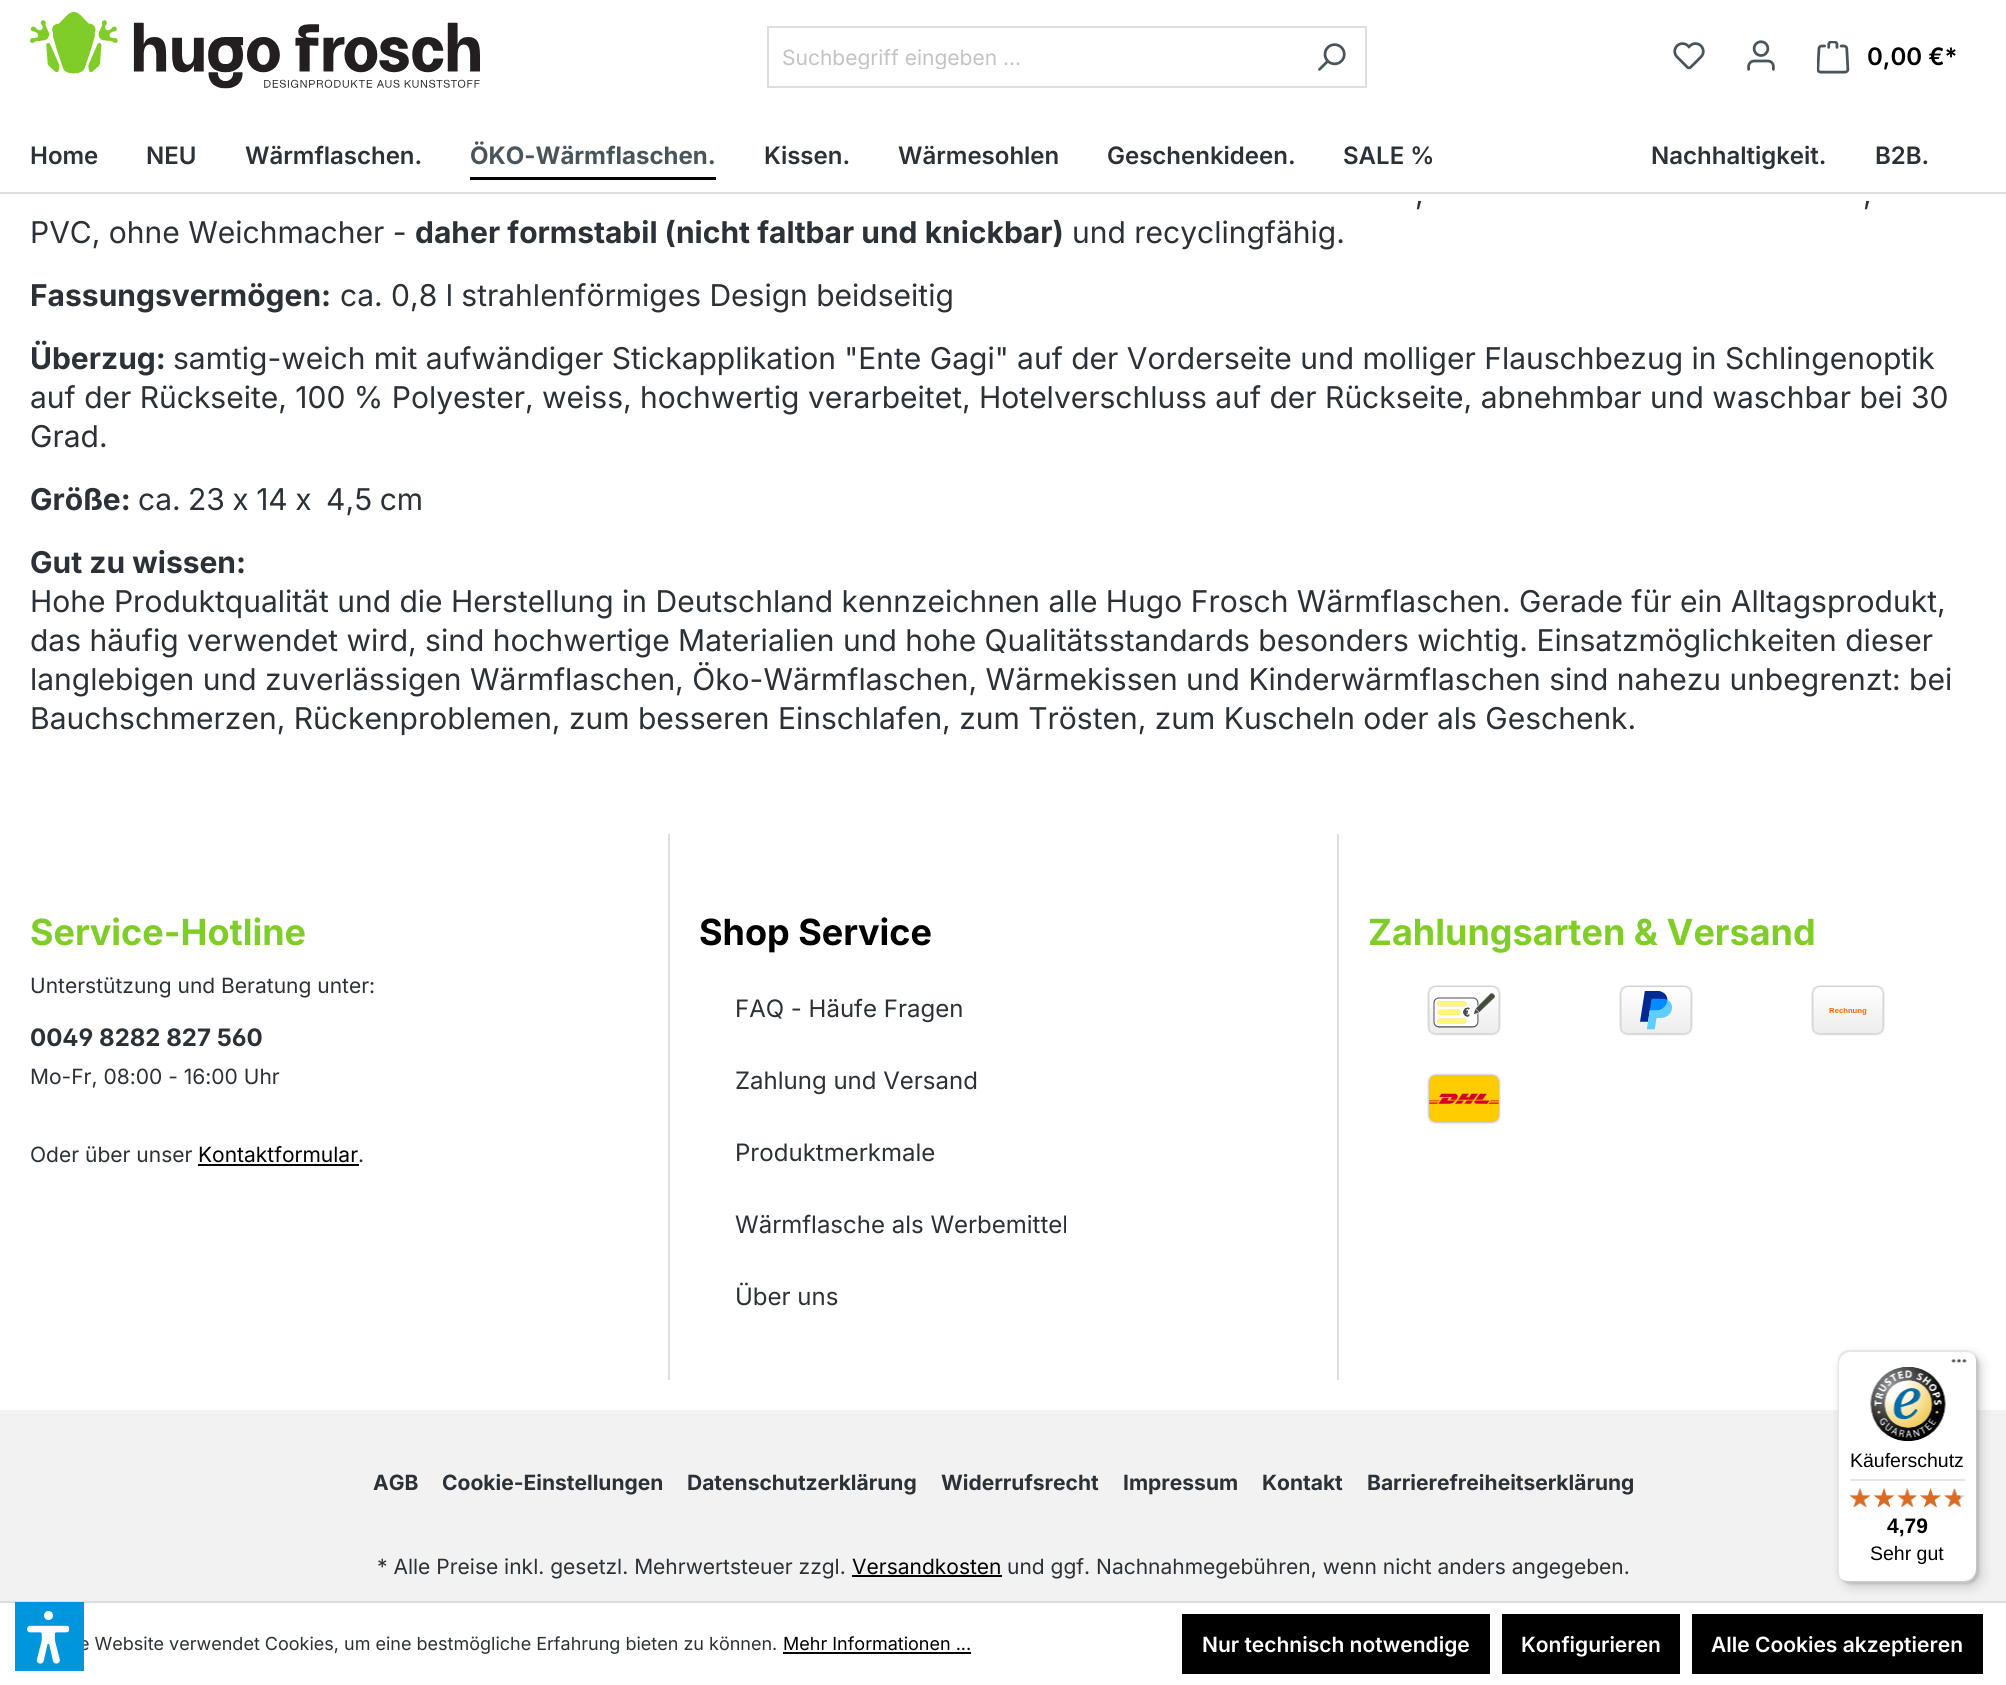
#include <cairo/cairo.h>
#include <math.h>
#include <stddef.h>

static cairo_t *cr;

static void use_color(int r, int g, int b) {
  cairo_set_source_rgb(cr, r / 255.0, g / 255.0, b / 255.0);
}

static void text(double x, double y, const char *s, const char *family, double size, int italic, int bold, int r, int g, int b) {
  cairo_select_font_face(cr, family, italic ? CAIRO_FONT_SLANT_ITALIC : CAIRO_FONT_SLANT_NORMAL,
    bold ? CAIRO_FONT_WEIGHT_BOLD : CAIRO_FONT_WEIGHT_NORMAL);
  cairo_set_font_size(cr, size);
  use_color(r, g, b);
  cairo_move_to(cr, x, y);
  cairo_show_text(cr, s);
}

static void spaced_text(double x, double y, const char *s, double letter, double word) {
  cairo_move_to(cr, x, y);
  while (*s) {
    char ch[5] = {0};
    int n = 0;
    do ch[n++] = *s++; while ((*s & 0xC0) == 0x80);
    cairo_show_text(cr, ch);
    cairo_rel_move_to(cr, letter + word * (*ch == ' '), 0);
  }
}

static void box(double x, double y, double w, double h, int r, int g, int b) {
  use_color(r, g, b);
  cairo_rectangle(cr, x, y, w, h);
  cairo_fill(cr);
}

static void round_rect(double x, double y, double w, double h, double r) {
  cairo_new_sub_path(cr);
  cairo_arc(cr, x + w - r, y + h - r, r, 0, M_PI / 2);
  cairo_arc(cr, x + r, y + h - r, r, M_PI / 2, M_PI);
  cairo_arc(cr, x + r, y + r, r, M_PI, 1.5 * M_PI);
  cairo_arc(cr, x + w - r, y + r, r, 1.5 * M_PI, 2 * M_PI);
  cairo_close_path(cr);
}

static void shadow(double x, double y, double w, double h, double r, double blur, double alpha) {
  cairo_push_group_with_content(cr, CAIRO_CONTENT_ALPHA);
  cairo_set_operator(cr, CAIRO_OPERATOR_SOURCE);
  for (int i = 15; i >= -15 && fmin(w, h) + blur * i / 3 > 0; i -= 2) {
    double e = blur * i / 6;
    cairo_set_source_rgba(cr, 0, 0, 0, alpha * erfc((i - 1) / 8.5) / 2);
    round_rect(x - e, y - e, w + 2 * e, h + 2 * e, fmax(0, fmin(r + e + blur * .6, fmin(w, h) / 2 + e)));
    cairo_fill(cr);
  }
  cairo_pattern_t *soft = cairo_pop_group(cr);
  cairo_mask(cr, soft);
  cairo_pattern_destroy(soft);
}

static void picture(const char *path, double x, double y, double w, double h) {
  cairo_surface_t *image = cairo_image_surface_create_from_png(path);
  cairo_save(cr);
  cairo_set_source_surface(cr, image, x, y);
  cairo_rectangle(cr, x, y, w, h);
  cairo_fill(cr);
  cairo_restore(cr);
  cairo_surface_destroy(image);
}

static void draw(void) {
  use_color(255, 255, 255);
  cairo_paint(cr);
  picture("img_01.png", 30, 12, 450, 77);
  box(767, 26, 600, 2, 222, 222, 222);
  box(767, 86, 531, 2, 222, 222, 222);
  box(767, 26, 2, 61, 222, 222, 222);
  box(1365, 26, 2, 61, 222, 222, 222);
  box(1296, 86, 71, 2, 222, 222, 222);
  picture("img_02.png", 1318, 43, 28, 28);
  picture("img_03.png", 1673, 42, 32, 28);
  picture("img_04.png", 1747, 40, 28, 31);
  picture("img_05.png", 1817, 41, 33, 33);
  box(0, 192, 2006, 2, 221, 221, 221);
  box(470, 177, 246, 3, 0, 0, 0);
  box(668, 834, 2, 546, 222, 222, 222);
  box(198, 1164, 161, 2, 0, 0, 0);
  box(1337, 834, 2, 546, 222, 222, 222);
  picture("img_06.png", 1427, 985, 74, 51);
  picture("img_07.png", 1619, 985, 74, 51);
  picture("img_08.png", 1811, 985, 74, 51);
  picture("img_09.png", 1427, 1073, 74, 51);
  box(0, 1410, 2006, 191, 242, 242, 242);
  box(852, 1575, 150, 2, 0, 0, 0);
  box(0, 1601, 2006, 2, 222, 222, 222);
  use_color(0, 0, 0);
  shadow(1842, 1355, 140, 232, 12, 6, 0.15);
  shadow(1839, 1352, 140, 232, 12, 1.5, 0.15);
  use_color(255, 255, 255);
  round_rect(1838, 1350, 139, 233, 12);
  cairo_fill(cr);
  cairo_set_source_rgba(cr, 0, 0, 0, 0.1);
  cairo_new_path(cr);
  cairo_move_to(cr, 1851, 1352);
  cairo_line_to(cr, 1966, 1352);
  cairo_curve_to(cr, 1970, 1352, 1974, 1354, 1976, 1357);
  cairo_curve_to(cr, 1974, 1353, 1970, 1350, 1965, 1350);
  cairo_line_to(cr, 1850, 1350);
  cairo_curve_to(cr, 1843, 1350, 1838, 1355, 1838, 1362);
  cairo_line_to(cr, 1838, 1571);
  cairo_curve_to(cr, 1838, 1574, 1839, 1577, 1841, 1579);
  cairo_curve_to(cr, 1840, 1577, 1839, 1575, 1839, 1572);
  cairo_line_to(cr, 1839, 1364);
  cairo_curve_to(cr, 1839, 1357, 1844, 1352, 1851, 1352);
  cairo_close_path(cr);
  cairo_fill(cr);
  cairo_set_source_rgba(cr, 0, 0, 0, 0.2);
  cairo_new_path(cr);
  cairo_move_to(cr, 1841, 1579);
  cairo_curve_to(cr, 1843, 1581, 1846, 1583, 1850, 1583);
  cairo_line_to(cr, 1965, 1583);
  cairo_curve_to(cr, 1972, 1583, 1977, 1578, 1977, 1571);
  cairo_line_to(cr, 1977, 1362);
  cairo_curve_to(cr, 1977, 1359, 1976, 1357, 1974, 1355);
  cairo_curve_to(cr, 1975, 1356, 1976, 1358, 1976, 1360);
  cairo_line_to(cr, 1976, 1569);
  cairo_curve_to(cr, 1976, 1576, 1970, 1581, 1964, 1581);
  cairo_line_to(cr, 1848, 1581);
  cairo_curve_to(cr, 1845, 1581, 1843, 1580, 1841, 1579);
  cairo_close_path(cr);
  cairo_fill(cr);
  cairo_set_source_rgba(cr, 0.196, 0.196, 0.196, 0.2);
  cairo_new_path(cr);
  cairo_move_to(cr, 1841, 1579);
  cairo_curve_to(cr, 1843, 1581, 1846, 1583, 1850, 1583);
  cairo_line_to(cr, 1965, 1583);
  cairo_curve_to(cr, 1972, 1583, 1977, 1578, 1977, 1571);
  cairo_line_to(cr, 1977, 1362);
  cairo_curve_to(cr, 1977, 1359, 1976, 1356, 1974, 1354);
  cairo_curve_to(cr, 1975, 1356, 1976, 1358, 1976, 1361);
  cairo_line_to(cr, 1976, 1570);
  cairo_curve_to(cr, 1976, 1576, 1971, 1582, 1964, 1582);
  cairo_line_to(cr, 1849, 1582);
  cairo_curve_to(cr, 1846, 1582, 1843, 1581, 1841, 1579);
  cairo_close_path(cr);
  cairo_fill(cr);
  cairo_set_source_rgba(cr, 1, 1, 1, 0.3);
  cairo_new_path(cr);
  cairo_move_to(cr, 1841, 1579);
  cairo_curve_to(cr, 1843, 1581, 1846, 1583, 1850, 1583);
  cairo_line_to(cr, 1965, 1583);
  cairo_curve_to(cr, 1972, 1583, 1977, 1578, 1977, 1571);
  cairo_line_to(cr, 1977, 1362);
  cairo_curve_to(cr, 1977, 1358, 1975, 1355, 1973, 1353);
  cairo_curve_to(cr, 1975, 1355, 1976, 1358, 1976, 1361);
  cairo_line_to(cr, 1976, 1570);
  cairo_curve_to(cr, 1976, 1576, 1971, 1582, 1964, 1582);
  cairo_line_to(cr, 1849, 1582);
  cairo_curve_to(cr, 1846, 1582, 1843, 1581, 1841, 1579);
  cairo_close_path(cr);
  cairo_fill(cr);
  picture("img_10.png", 1951, 1359, 16, 4);
  picture("img_11.png", 1870, 1367, 76, 75);
  box(1850, 1479, 115, 2, 229, 229, 229);
  picture("img_12.png", 1849, 1488, 22, 19);
  picture("img_13.png", 1874, 1488, 20, 19);
  picture("img_14.png", 1897, 1488, 20, 19);
  picture("img_15.png", 1920, 1488, 21, 19);
  picture("img_16.png", 1944, 1488, 21, 19);
  picture("img_17.png", 1849, 1488, 22, 19);
  picture("img_18.png", 1874, 1488, 20, 20);
  picture("img_19.png", 1897, 1488, 20, 19);
  picture("img_20.png", 1920, 1488, 21, 20);
  picture("img_21.png", 1944, 1488, 17, 19);
  box(783, 1652, 188, 2, 0, 0, 0);
  box(1182, 1614, 308, 60, 0, 0, 0);
  box(1502, 1614, 178, 60, 0, 0, 0);
  box(1692, 1614, 291, 60, 0, 0, 0);
  cairo_save(cr);
  cairo_rectangle(cr, 782, 44, 502, 25);
  cairo_clip(cr);
  text(782, 65, "Suchbegriff eingeben ...", "Inter", 21, 0, 0, 195, 195, 195);
  cairo_restore(cr);
  text(1867, 65, "0,00 €*", "Inter SemiBold", 24, 0, 0, 0, 0, 0);
  text(30, 164, "Home", "Inter SemiBold", 24, 0, 0, 43, 49, 54);
  text(146, 164, "NEU", "Inter SemiBold", 24, 0, 0, 43, 49, 54);
  text(245, 164, "Wärmflaschen.", "Inter SemiBold", 24, 0, 0, 43, 49, 54);
  text(470, 164, "ÖKO-Wärmflaschen.", "Inter", 24, 0, 1, 74, 84, 91);
  text(764, 164, "Kissen.", "Inter SemiBold", 24, 0, 0, 43, 49, 54);
  text(898, 164, "Wärmesohlen", "Inter SemiBold", 24, 0, 0, 43, 49, 54);
  text(1107, 164, "Geschenkideen.", "Inter SemiBold", 24, 0, 0, 43, 49, 54);
  text(1343, 164, "SALE %", "Inter SemiBold", 24, 0, 0, 43, 49, 54);
  text(1651, 164, "Nachhaltigkeit.", "Inter SemiBold", 24, 0, 0, 43, 49, 54);
  text(1875, 164, "B2B.", "Inter SemiBold", 24, 0, 0, 43, 49, 54);
  text(1415, 204, ",", "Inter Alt", 30, 0, 0, 43, 49, 54);
  text(1863, 204, ",", "Inter Alt", 30, 0, 0, 43, 49, 54);
  text(30, 243, "PVC, ohne Weichmacher -", "Inter", 30, 0, 0, 43, 49, 54);
  text(415, 243, "daher formstabil (nicht faltbar und knickbar)", "Inter", 30, 0, 1, 43, 49, 54);
  text(1072, 243, "und recyclingfähig.", "Inter", 30, 0, 0, 43, 49, 54);
  text(30, 306, "Fassungsvermögen:", "Inter", 30, 0, 1, 43, 49, 54);
  text(340, 306, "ca. 0,8 l strahlenförmiges Design beidseitig", "Inter", 30, 0, 0, 43, 49, 54);
  text(30, 369, "Überzug:", "Inter", 30, 0, 1, 43, 49, 54);
  text(173, 369, "samtig-weich mit aufwändiger Stickapplikation \"Ente Gagi\" auf der Vorderseite und molliger Flauschbezug in Schlingenoptik", "Inter", 30, 0, 0, 43, 49, 54);
  text(30, 408, "auf der Rückseite, 100 % Polyester, weiss, hochwertig verarbeitet, Hotelverschluss auf der Rückseite, abnehmbar und waschbar bei 30", "Inter", 30, 0, 0, 43, 49, 54);
  text(30, 447, "Grad.", "Inter", 30, 0, 0, 43, 49, 54);
  text(30, 510, "Größe:", "Inter", 30, 0, 1, 43, 49, 54);
  cairo_select_font_face(cr, "Inter", CAIRO_FONT_SLANT_NORMAL, CAIRO_FONT_WEIGHT_NORMAL);
  spaced_text(138, 510, "ca. 23 x 14 x", 0, -1);
  spaced_text(326, 510, "4,5 cm", 0, -1);
  text(30, 573, "Gut zu wissen:", "Inter", 30, 0, 1, 43, 49, 54);
  text(30, 612, "Hohe Produktqualität und die Herstellung in Deutschland kennzeichnen alle Hugo Frosch Wärmflaschen. Gerade für ein Alltagsprodukt,", "Inter", 30, 0, 0, 43, 49, 54);
  text(30, 651, "das häufig verwendet wird, sind hochwertige Materialien und hohe Qualitätsstandards besonders wichtig. Einsatzmöglichkeiten dieser", "Inter", 30, 0, 0, 43, 49, 54);
  text(30, 690, "langlebigen und zuverlässigen Wärmflaschen, Öko-Wärmflaschen, Wärmekissen und Kinderwärmflaschen sind nahezu unbegrenzt: bei", "Inter", 30, 0, 0, 43, 49, 54);
  text(30, 729, "Bauchschmerzen, Rückenproblemen, zum besseren Einschlafen, zum Trösten, zum Kuscheln oder als Geschenk.", "Inter", 30, 0, 0, 43, 49, 54);
  text(30, 945, "Service-Hotline", "Inter", 36, 0, 1, 128, 204, 40);
  text(30, 993, "Unterstützung und Beratung unter:", "Inter", 21, 0, 0, 43, 49, 54);
  text(30, 1046, "0049 8282 827 560", "Inter Alt", 24, 0, 1, 43, 49, 54);
  text(30, 1084, "Mo-Fr, 08:00 - 16:00 Uhr", "Inter", 21, 0, 0, 43, 49, 54);
  text(30, 1162, "Oder über unser", "Inter", 21, 0, 0, 43, 49, 54);
  text(198, 1162, "Kontaktformular", "Inter", 21, 0, 0, 0, 0, 0);
  text(358, 1162, ".", "Inter", 21, 0, 0, 43, 49, 54);
  text(699, 945, "Shop Service", "Inter", 36, 0, 1, 0, 0, 0);
  text(735, 1017, "FAQ - Häufe Fragen", "Inter", 24, 0, 0, 43, 49, 54);
  text(735, 1089, "Zahlung und Versand", "Inter", 24, 0, 0, 43, 49, 54);
  text(735, 1161, "Produktmerkmale", "Inter", 24, 0, 0, 43, 49, 54);
  text(735, 1233, "Wärmflasche als Werbemittel", "Inter", 24, 0, 0, 43, 49, 54);
  text(735, 1305, "Über uns", "Inter", 24, 0, 0, 43, 49, 54);
  text(1368, 945, "Zahlungsarten & Versand", "Inter", 36, 0, 1, 128, 204, 40);
  text(373, 1490, "AGB", "Inter", 21, 0, 1, 43, 49, 54);
  text(442, 1490, "Cookie-Einstellungen", "Inter", 21, 0, 1, 43, 49, 54);
  text(687, 1490, "Datenschutzerklärung", "Inter", 21, 0, 1, 43, 49, 54);
  text(941, 1490, "Widerrufsrecht", "Inter", 21, 0, 1, 43, 49, 54);
  text(1123, 1490, "Impressum", "Inter", 21, 0, 1, 43, 49, 54);
  text(1262, 1490, "Kontakt", "Inter", 21, 0, 1, 43, 49, 54);
  text(1367, 1490, "Barrierefreiheitserklärung", "Inter", 21, 0, 1, 43, 49, 54);
  text(377, 1574, "* Alle Preise inkl. gesetzl. Mehrwertsteuer zzgl.", "Inter", 21, 0, 0, 43, 49, 54);
  text(852, 1574, "Versandkosten", "Inter", 21, 0, 0, 0, 0, 0);
  text(1007, 1574, "und ggf. Nachnahmegebühren, wenn nicht anders angegeben.", "Inter", 21, 0, 0, 43, 49, 54);
  text(1850, 1467, "Käuferschutz", "Liberation Sans", 19.5, 0, 0, 0, 0, 0);
  text(1887, 1533, "4,79", "Liberation Sans", 21, 0, 1, 0, 0, 0);
  text(1870, 1560, "Sehr gut", "Liberation Sans", 19.5, 0, 0, 0, 0, 0);
  text(79, 1650, "e Website verwendet Cookies, um eine bestmögliche Erfahrung bieten zu können.", "Inter", 18, 0, 0, 43, 49, 54);
  box(15, 1602, 69, 69, 0, 150, 222);
  picture("img_22.png", 27, 1611, 42, 53);
  text(783, 1650, "Mehr Informationen ...", "Inter", 18, 0, 0, 0, 0, 0);
  text(1202, 1652, "Nur technisch notwendige", "Inter SemiBold", 21, 0, 0, 255, 255, 255);
  text(1521, 1652, "Konfigurieren", "Inter SemiBold", 21, 0, 0, 255, 255, 255);
  text(1711, 1652, "Alle Cookies akzeptieren", "Inter SemiBold", 21, 0, 0, 255, 255, 255);
}

int main(void) {
  cairo_surface_t *surface = cairo_image_surface_create(CAIRO_FORMAT_RGB24, 2006, 1685);
  cr = cairo_create(surface);
  cairo_font_options_t *options = cairo_font_options_create();
  cairo_font_options_set_hint_metrics(options, CAIRO_HINT_METRICS_OFF);
  cairo_font_options_set_hint_style(options, CAIRO_HINT_STYLE_NONE);
  cairo_set_font_options(cr, options);
  cairo_set_miter_limit(cr, 4);
  draw();
  cairo_surface_write_to_png(surface, "out.png");
  cairo_font_options_destroy(options);
  cairo_destroy(cr);
  cairo_surface_destroy(surface);
  return 0;
}
